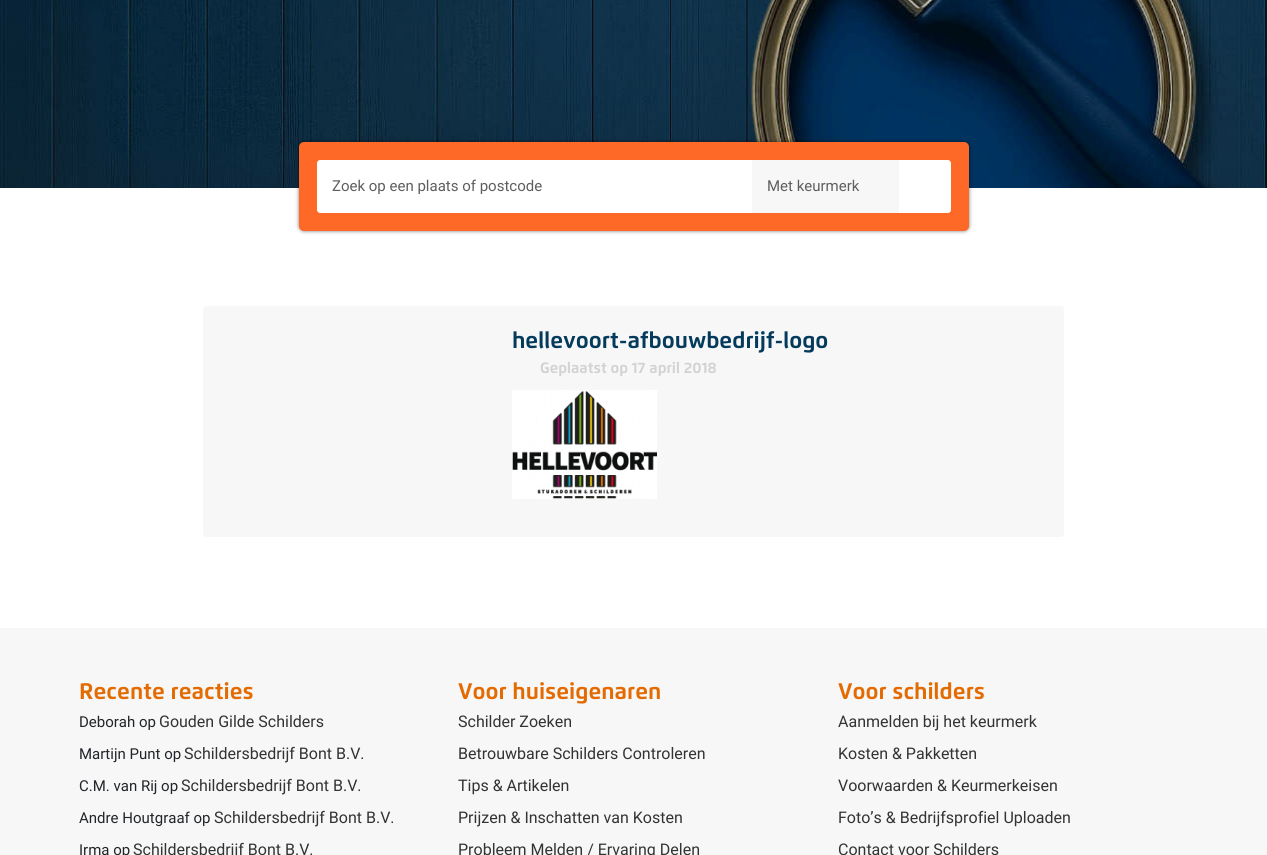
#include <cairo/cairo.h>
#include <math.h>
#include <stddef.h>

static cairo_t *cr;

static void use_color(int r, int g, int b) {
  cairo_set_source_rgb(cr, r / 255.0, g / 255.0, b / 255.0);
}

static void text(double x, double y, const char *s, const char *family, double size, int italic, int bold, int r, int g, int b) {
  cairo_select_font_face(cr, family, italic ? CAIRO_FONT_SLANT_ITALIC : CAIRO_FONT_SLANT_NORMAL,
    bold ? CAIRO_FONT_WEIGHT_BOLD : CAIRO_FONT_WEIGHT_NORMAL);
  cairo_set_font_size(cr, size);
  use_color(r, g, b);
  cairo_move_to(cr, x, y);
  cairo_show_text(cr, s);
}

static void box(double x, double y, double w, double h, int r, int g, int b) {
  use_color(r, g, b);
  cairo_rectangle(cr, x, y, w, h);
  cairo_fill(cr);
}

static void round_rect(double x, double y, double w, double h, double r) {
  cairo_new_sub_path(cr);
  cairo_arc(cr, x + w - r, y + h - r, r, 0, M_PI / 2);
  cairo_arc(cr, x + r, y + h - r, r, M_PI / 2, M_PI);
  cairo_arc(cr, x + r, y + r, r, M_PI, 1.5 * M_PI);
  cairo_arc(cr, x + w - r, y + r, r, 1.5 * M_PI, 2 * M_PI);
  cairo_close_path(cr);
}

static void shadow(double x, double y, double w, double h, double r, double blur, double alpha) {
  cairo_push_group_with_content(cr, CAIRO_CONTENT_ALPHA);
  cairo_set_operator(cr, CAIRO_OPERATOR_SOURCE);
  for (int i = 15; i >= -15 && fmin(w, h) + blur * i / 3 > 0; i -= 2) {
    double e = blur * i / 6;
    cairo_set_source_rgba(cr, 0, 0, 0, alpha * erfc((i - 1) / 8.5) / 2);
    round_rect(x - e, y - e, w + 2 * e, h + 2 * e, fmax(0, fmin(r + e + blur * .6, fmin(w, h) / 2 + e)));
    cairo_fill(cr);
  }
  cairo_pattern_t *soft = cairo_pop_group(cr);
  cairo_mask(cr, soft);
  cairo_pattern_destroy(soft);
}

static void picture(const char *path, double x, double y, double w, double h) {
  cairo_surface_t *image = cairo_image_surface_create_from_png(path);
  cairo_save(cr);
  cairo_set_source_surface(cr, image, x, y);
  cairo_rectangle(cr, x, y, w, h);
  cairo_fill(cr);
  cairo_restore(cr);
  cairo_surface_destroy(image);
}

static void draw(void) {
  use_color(255, 255, 255);
  cairo_paint(cr);
  picture("img_01.png", 0, 0, 1267, 188);
  use_color(0, 0, 0);
  shadow(299, 142, 670, 89, 5, 2, 0.52);
  use_color(255, 105, 39);
  round_rect(299, 142, 670, 89, 5);
  cairo_fill(cr);
  use_color(255, 255, 255);
  cairo_new_path(cr);
  cairo_move_to(cr, 320, 160);
  cairo_line_to(cr, 752, 160);
  cairo_line_to(cr, 752, 213);
  cairo_line_to(cr, 320, 213);
  cairo_curve_to(cr, 318.5, 213, 317, 211.5, 317, 210);
  cairo_line_to(cr, 317, 163);
  cairo_curve_to(cr, 317, 161.5, 318.5, 160, 320, 160);
  cairo_close_path(cr);
  cairo_fill(cr);
  box(752, 160, 147, 53, 247, 247, 247);
  use_color(255, 255, 255);
  cairo_new_path(cr);
  cairo_move_to(cr, 899, 160);
  cairo_line_to(cr, 948, 160);
  cairo_curve_to(cr, 949.5, 160, 951, 161.5, 951, 163);
  cairo_line_to(cr, 951, 210);
  cairo_curve_to(cr, 951, 211.5, 949.5, 213, 948, 213);
  cairo_line_to(cr, 899, 213);
  cairo_close_path(cr);
  cairo_fill(cr);
  use_color(247, 247, 247);
  round_rect(203, 306, 861, 231, 3);
  cairo_fill(cr);
  picture("img_02.png", 512, 390, 145, 109);
  box(0, 628, 1267, 227, 247, 247, 247);
  text(332, 191, "Zoek op een plaats of postcode", "Roboto", 15, 0, 0, 94, 94, 94);
  text(767, 191, "Met keurmerk", "Roboto", 15, 0, 0, 94, 94, 94);
  text(512, 348, "hellevoort-afbouwbedrijf-logo", "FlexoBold", 22.5, 0, 1, 4, 59, 93);
  text(540, 373, "Geplaatst op 17 april 2018", "FlexoBold", 15, 0, 1, 210, 210, 210);
  text(79, 699, "Recente reacties", "FlexoBold", 22.5, 0, 1, 228, 107, 1);
  text(79, 727, "Deborah op", "Roboto", 15, 0, 0, 33, 37, 41);
  text(159, 727, "Gouden Gilde Schilders", "Roboto", 16, 0, 0, 51, 51, 51);
  text(79, 759, "Martijn Punt op", "Roboto", 15, 0, 0, 33, 37, 41);
  text(184, 759, "Schildersbedrijf Bont B.V.", "Roboto", 16, 0, 0, 51, 51, 51);
  text(79, 791, "C.M. van Rij op", "Roboto", 15, 0, 0, 33, 37, 41);
  text(181, 791, "Schildersbedrijf Bont B.V.", "Roboto", 16, 0, 0, 51, 51, 51);
  text(79, 823, "Andre Houtgraaf op", "Roboto", 15, 0, 0, 33, 37, 41);
  text(214, 823, "Schildersbedrijf Bont B.V.", "Roboto", 16, 0, 0, 51, 51, 51);
  text(79, 855, "Irma op", "Roboto", 15, 0, 0, 33, 37, 41);
  text(133, 855, "Schildersbedrijf Bont B.V.", "Roboto", 16, 0, 0, 51, 51, 51);
  text(458, 699, "Voor huiseigenaren", "FlexoBold", 22.5, 0, 1, 228, 107, 1);
  text(458, 727, "Schilder Zoeken", "Roboto", 16, 0, 0, 51, 51, 51);
  text(458, 759, "Betrouwbare Schilders Controleren", "Roboto", 16, 0, 0, 51, 51, 51);
  text(458, 791, "Tips & Artikelen", "Roboto", 16, 0, 0, 51, 51, 51);
  text(458, 823, "Prijzen & Inschatten van Kosten", "Roboto", 16, 0, 0, 51, 51, 51);
  text(458, 855, "Probleem Melden / Ervaring Delen", "Roboto", 16, 0, 0, 51, 51, 51);
  text(838, 699, "Voor schilders", "FlexoBold", 22.5, 0, 1, 228, 107, 1);
  text(838, 727, "Aanmelden bij het keurmerk", "Roboto", 16, 0, 0, 51, 51, 51);
  text(838, 759, "Kosten & Pakketten", "Roboto", 16, 0, 0, 51, 51, 51);
  text(838, 791, "Voorwaarden & Keurmerkeisen", "Roboto", 16, 0, 0, 51, 51, 51);
  text(838, 823, "Foto’s & Bedrijfsprofiel Uploaden", "Roboto", 16, 0, 0, 51, 51, 51);
  text(838, 855, "Contact voor Schilders", "Roboto", 16, 0, 0, 51, 51, 51);
}

int main(void) {
  cairo_surface_t *surface = cairo_image_surface_create(CAIRO_FORMAT_RGB24, 1267, 855);
  cr = cairo_create(surface);
  cairo_font_options_t *options = cairo_font_options_create();
  cairo_font_options_set_hint_metrics(options, CAIRO_HINT_METRICS_OFF);
  cairo_font_options_set_hint_style(options, CAIRO_HINT_STYLE_NONE);
  cairo_set_font_options(cr, options);
  cairo_set_miter_limit(cr, 4);
  draw();
  cairo_surface_write_to_png(surface, "out.png");
  cairo_font_options_destroy(options);
  cairo_destroy(cr);
  cairo_surface_destroy(surface);
  return 0;
}
